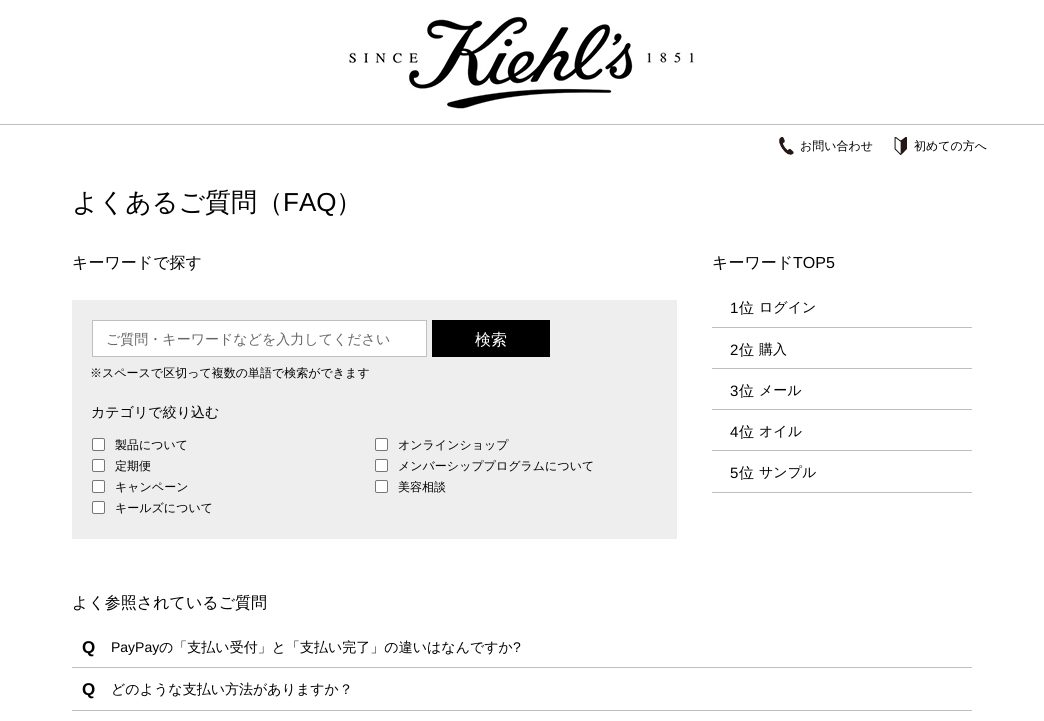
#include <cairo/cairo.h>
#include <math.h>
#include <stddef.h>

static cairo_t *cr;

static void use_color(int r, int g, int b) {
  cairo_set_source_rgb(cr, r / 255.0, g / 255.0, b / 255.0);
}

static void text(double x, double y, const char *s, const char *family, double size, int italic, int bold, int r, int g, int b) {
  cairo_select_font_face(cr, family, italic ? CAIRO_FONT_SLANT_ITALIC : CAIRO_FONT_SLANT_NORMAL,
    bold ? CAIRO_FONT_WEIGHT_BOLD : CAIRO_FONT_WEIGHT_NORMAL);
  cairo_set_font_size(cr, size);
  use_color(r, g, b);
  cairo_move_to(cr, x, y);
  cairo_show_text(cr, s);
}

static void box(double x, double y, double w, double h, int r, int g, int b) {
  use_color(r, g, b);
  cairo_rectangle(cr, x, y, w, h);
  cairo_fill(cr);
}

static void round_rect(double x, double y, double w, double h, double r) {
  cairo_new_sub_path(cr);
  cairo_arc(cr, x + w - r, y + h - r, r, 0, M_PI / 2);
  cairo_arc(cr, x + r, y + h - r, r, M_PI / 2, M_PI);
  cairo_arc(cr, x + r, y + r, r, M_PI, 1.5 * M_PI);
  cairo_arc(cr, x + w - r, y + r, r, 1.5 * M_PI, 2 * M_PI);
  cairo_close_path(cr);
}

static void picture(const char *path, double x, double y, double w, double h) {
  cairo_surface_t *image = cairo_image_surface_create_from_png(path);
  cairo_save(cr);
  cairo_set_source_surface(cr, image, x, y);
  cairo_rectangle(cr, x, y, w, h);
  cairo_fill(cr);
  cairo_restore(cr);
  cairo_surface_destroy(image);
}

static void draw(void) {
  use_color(255, 255, 255);
  cairo_paint(cr);
  box(0, 124, 1044, 1, 191, 191, 191);
  picture("img_01.png", 349, 16, 345, 93);
  picture("img_02.png", 779, 137, 15, 18);
  picture("img_03.png", 894, 137, 13, 18);
  box(72, 300, 605, 239, 238, 238, 238);
  use_color(255, 255, 255);
  cairo_rectangle(cr, 92.5, 320.5, 334, 36);
  cairo_fill_preserve(cr);
  use_color(191, 191, 191);
  cairo_set_line_width(cr, 1);
  cairo_stroke(cr);
  box(432, 320, 118, 37, 0, 0, 0);
  use_color(255, 255, 255);
  round_rect(92.5, 438.5, 12, 12, 1.5);
  cairo_fill_preserve(cr);
  use_color(118, 118, 118);
  cairo_stroke(cr);
  use_color(255, 255, 255);
  round_rect(375.5, 438.5, 12, 12, 1.5);
  cairo_fill_preserve(cr);
  use_color(118, 118, 118);
  cairo_stroke(cr);
  use_color(255, 255, 255);
  round_rect(92.5, 459.5, 12, 12, 1.5);
  cairo_fill_preserve(cr);
  use_color(118, 118, 118);
  cairo_stroke(cr);
  use_color(255, 255, 255);
  round_rect(375.5, 459.5, 12, 12, 1.5);
  cairo_fill_preserve(cr);
  use_color(118, 118, 118);
  cairo_stroke(cr);
  use_color(255, 255, 255);
  round_rect(92.5, 480.5, 12, 12, 1.5);
  cairo_fill_preserve(cr);
  use_color(118, 118, 118);
  cairo_stroke(cr);
  use_color(255, 255, 255);
  round_rect(375.5, 480.5, 12, 12, 1.5);
  cairo_fill_preserve(cr);
  use_color(118, 118, 118);
  cairo_stroke(cr);
  use_color(255, 255, 255);
  round_rect(92.5, 501.5, 12, 12, 1.5);
  cairo_fill_preserve(cr);
  use_color(118, 118, 118);
  cairo_stroke(cr);
  box(712, 327, 260, 1, 191, 191, 191);
  box(712, 368, 260, 1, 191, 191, 191);
  box(712, 409, 260, 1, 191, 191, 191);
  box(712, 450, 260, 1, 191, 191, 191);
  box(712, 492, 260, 1, 191, 191, 191);
  box(72, 667, 900, 1, 191, 191, 191);
  box(72, 710, 900, 1, 191, 191, 191);
  text(800, 150, "お問い合わせ", "WenQuanYi Zen Hei Medium", 12, 0, 0, 0, 0, 0);
  text(914, 150, "初めての方へ", "WenQuanYi Zen Hei Medium", 12, 0, 0, 0, 0, 0);
  text(72, 211, "よくあるご質問（", "WenQuanYi Zen Hei Medium", 26, 0, 0, 0, 0, 0);
  text(283, 211, "FAQ", "Liberation Sans", 26, 0, 0, 0, 0, 0);
  text(336, 211, "）", "WenQuanYi Zen Hei Medium", 26, 0, 0, 0, 0, 0);
  text(72, 268, "キーワードで探す", "WenQuanYi Zen Hei Medium", 16, 0, 0, 0, 0, 0);
  text(106, 344, "ご質問・キーワードなどを入力してください", "WenQuanYi Zen Hei Medium", 14, 0, 0, 102, 102, 102);
  text(475, 345, "検索", "WenQuanYi Zen Hei Medium", 16, 0, 0, 255, 255, 255);
  text(90, 377, "※スペースで区切って複数の単語で検索ができます", "WenQuanYi Zen Hei Medium", 12, 0, 0, 0, 0, 0);
  text(91, 417, "カテゴリで絞り込む", "WenQuanYi Zen Hei Medium", 14, 0, 0, 0, 0, 0);
  text(115, 449, "製品について", "WenQuanYi Zen Hei Medium", 12, 0, 0, 0, 0, 0);
  text(398, 449, "オンラインショップ", "WenQuanYi Zen Hei Medium", 12, 0, 0, 0, 0, 0);
  text(115, 470, "定期便", "WenQuanYi Zen Hei Medium", 12, 0, 0, 0, 0, 0);
  text(398, 470, "メンバーシッププログラムについて", "WenQuanYi Zen Hei Medium", 12, 0, 0, 0, 0, 0);
  text(115, 491, "キャンペーン", "WenQuanYi Zen Hei Medium", 12, 0, 0, 0, 0, 0);
  text(398, 491, "美容相談", "WenQuanYi Zen Hei Medium", 12, 0, 0, 0, 0, 0);
  text(115, 512, "キールズについて", "WenQuanYi Zen Hei Medium", 12, 0, 0, 0, 0, 0);
  text(712, 268, "キーワード", "WenQuanYi Zen Hei Medium", 16, 0, 0, 0, 0, 0);
  text(793, 268, "TOP5", "Liberation Sans", 16, 0, 0, 0, 0, 0);
  text(730, 313, "1", "Liberation Sans", 15, 0, 0, 0, 0, 0);
  text(739, 313, "位", "WenQuanYi Zen Hei Medium", 15, 0, 0, 0, 0, 0);
  text(759, 312, "ログイン", "WenQuanYi Zen Hei Medium", 14, 0, 0, 0, 0, 0);
  text(730, 355, "2", "Liberation Sans", 15, 0, 0, 0, 0, 0);
  text(739, 355, "位", "WenQuanYi Zen Hei Medium", 15, 0, 0, 0, 0, 0);
  text(759, 354, "購入", "WenQuanYi Zen Hei Medium", 14, 0, 0, 0, 0, 0);
  text(730, 396, "3", "Liberation Sans", 15, 0, 0, 0, 0, 0);
  text(739, 396, "位", "WenQuanYi Zen Hei Medium", 15, 0, 0, 0, 0, 0);
  text(759, 395, "メール", "WenQuanYi Zen Hei Medium", 14, 0, 0, 0, 0, 0);
  text(730, 437, "4", "Liberation Sans", 15, 0, 0, 0, 0, 0);
  text(739, 437, "位", "WenQuanYi Zen Hei Medium", 15, 0, 0, 0, 0, 0);
  text(759, 436, "オイル", "WenQuanYi Zen Hei Medium", 14, 0, 0, 0, 0, 0);
  text(730, 478, "5", "Liberation Sans", 15, 0, 0, 0, 0, 0);
  text(739, 478, "位", "WenQuanYi Zen Hei Medium", 15, 0, 0, 0, 0, 0);
  text(759, 477, "サンプル", "WenQuanYi Zen Hei Medium", 14, 0, 0, 0, 0, 0);
  text(72, 608, "よく参照されているご質問", "WenQuanYi Zen Hei Medium", 16, 0, 0, 0, 0, 0);
  text(82, 653, "Q", "Liberation Sans", 17, 0, 1, 0, 0, 0);
  text(111, 652, "PayPay", "Liberation Sans", 14, 0, 0, 0, 0, 0);
  text(159, 652, "の「支払い受付」と「支払い完了」の違いはなんですか", "WenQuanYi Zen Hei Medium", 14, 0, 0, 0, 0, 0);
  text(513, 652, "?", "Liberation Sans", 14, 0, 0, 0, 0, 0);
  text(82, 695, "Q", "Liberation Sans", 17, 0, 1, 0, 0, 0);
  text(111, 694, "どのような支払い方法がありますか？", "WenQuanYi Zen Hei Medium", 14, 0, 0, 0, 0, 0);
}

int main(void) {
  cairo_surface_t *surface = cairo_image_surface_create(CAIRO_FORMAT_RGB24, 1044, 721);
  cr = cairo_create(surface);
  cairo_font_options_t *options = cairo_font_options_create();
  cairo_font_options_set_hint_metrics(options, CAIRO_HINT_METRICS_OFF);
  cairo_font_options_set_hint_style(options, CAIRO_HINT_STYLE_NONE);
  cairo_set_font_options(cr, options);
  cairo_set_miter_limit(cr, 4);
  draw();
  cairo_surface_write_to_png(surface, "out.png");
  cairo_font_options_destroy(options);
  cairo_destroy(cr);
  cairo_surface_destroy(surface);
  return 0;
}
